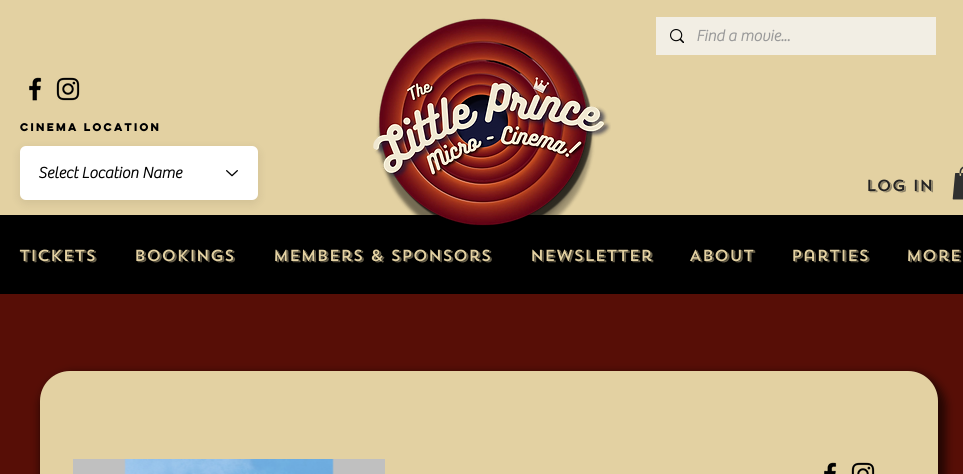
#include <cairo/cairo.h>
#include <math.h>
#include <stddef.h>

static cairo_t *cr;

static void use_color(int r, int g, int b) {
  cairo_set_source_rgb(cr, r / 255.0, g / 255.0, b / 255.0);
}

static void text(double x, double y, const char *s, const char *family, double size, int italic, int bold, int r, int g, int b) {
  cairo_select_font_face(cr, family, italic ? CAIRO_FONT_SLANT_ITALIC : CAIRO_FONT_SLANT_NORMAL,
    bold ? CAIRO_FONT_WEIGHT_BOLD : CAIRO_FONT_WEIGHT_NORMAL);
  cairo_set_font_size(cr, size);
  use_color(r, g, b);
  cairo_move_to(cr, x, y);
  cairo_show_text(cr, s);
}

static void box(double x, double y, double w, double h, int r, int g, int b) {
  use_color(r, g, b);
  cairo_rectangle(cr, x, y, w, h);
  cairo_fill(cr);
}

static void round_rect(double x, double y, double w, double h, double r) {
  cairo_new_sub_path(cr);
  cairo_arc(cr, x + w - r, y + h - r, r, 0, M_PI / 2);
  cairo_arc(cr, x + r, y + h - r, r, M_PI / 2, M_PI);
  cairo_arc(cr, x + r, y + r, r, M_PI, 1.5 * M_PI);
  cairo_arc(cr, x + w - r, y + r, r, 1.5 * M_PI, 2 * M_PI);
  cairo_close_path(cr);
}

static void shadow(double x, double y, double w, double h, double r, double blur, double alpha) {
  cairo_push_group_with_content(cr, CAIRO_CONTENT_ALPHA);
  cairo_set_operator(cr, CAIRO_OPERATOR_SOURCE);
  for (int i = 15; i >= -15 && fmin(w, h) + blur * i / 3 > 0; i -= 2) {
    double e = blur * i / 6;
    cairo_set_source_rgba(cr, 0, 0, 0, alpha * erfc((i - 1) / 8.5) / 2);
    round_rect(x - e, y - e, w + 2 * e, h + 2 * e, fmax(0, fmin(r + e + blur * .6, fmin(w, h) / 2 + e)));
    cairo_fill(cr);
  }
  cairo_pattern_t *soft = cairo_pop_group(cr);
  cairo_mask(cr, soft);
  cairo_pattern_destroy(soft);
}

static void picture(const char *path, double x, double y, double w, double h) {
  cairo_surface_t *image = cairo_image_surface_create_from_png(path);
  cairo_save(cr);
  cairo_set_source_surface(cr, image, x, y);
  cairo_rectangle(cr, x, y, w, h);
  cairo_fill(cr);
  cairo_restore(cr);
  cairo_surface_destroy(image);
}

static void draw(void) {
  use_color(227, 209, 162);
  cairo_paint(cr);
  box(0, 215, 963, 79, 0, 0, 0);
  picture("img_01.png", 373, 18, 238, 208);
  box(656, 17, 280, 38, 242, 238, 228);
  picture("img_02.png", 670, 29, 14, 14);
  picture("img_03.png", 29, 77, 13, 24);
  picture("img_04.png", 56, 77, 24, 24);
  use_color(0, 0, 0);
  shadow(19, 148, 240, 56, 7, 5, 0.08);
  use_color(255, 255, 255);
  round_rect(20, 146, 238, 54, 6);
  cairo_fill(cr);
  picture("img_05.png", 226, 170, 12, 7);
  picture("img_06.png", 952, 166, 11, 34);
  box(0, 294, 963, 180, 87, 14, 6);
  use_color(0, 0, 0);
  shadow(40, 373, 906, 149, 34, 4.5, 0.6);
  use_color(227, 209, 162);
  round_rect(40, 371, 898, 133, 30);
  cairo_fill(cr);
  box(73, 459, 312, 15, 192, 192, 192);
  picture("img_07.png", 124, 459, 210, 15);
  picture("img_08.png", 824, 462, 13, 12);
  picture("img_09.png", 851, 462, 24, 12);
  text(696, 41, "Find a movie...", "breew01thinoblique", 16, 0, 1, 153, 153, 153);
  text(20, 131, "Cinema Location", "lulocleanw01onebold", 10, 0, 1, 0, 0, 0);
  text(38, 178, "Select Location Name", "breew01thinoblique", 16, 0, 1, 0, 0, 0);
  text(866, 191, "Log In", "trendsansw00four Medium", 16, 0, 0, 36, 35, 35);
  text(19, 261, "Tickets", "trendsansw00four Medium", 16, 0, 0, 227, 209, 162);
  text(134, 261, "Bookings", "trendsansw00four Medium", 16, 0, 0, 227, 209, 162);
  text(273, 261, "Members & Sponsors", "trendsansw00four Medium", 16, 0, 0, 227, 209, 162);
  text(530, 261, "Newsletter", "trendsansw00four Medium", 16, 0, 0, 227, 209, 162);
  text(689, 261, "About", "trendsansw00four Medium", 16, 0, 0, 227, 209, 162);
  text(791, 261, "Parties", "trendsansw00four Medium", 16, 0, 0, 227, 209, 162);
  text(906, 261, "More", "trendsansw00four Medium", 16, 0, 0, 227, 209, 162);
}

int main(void) {
  cairo_surface_t *surface = cairo_image_surface_create(CAIRO_FORMAT_RGB24, 963, 474);
  cr = cairo_create(surface);
  cairo_font_options_t *options = cairo_font_options_create();
  cairo_font_options_set_hint_metrics(options, CAIRO_HINT_METRICS_OFF);
  cairo_font_options_set_hint_style(options, CAIRO_HINT_STYLE_NONE);
  cairo_set_font_options(cr, options);
  cairo_set_miter_limit(cr, 4);
  draw();
  cairo_surface_write_to_png(surface, "out.png");
  cairo_font_options_destroy(options);
  cairo_destroy(cr);
  cairo_surface_destroy(surface);
  return 0;
}
